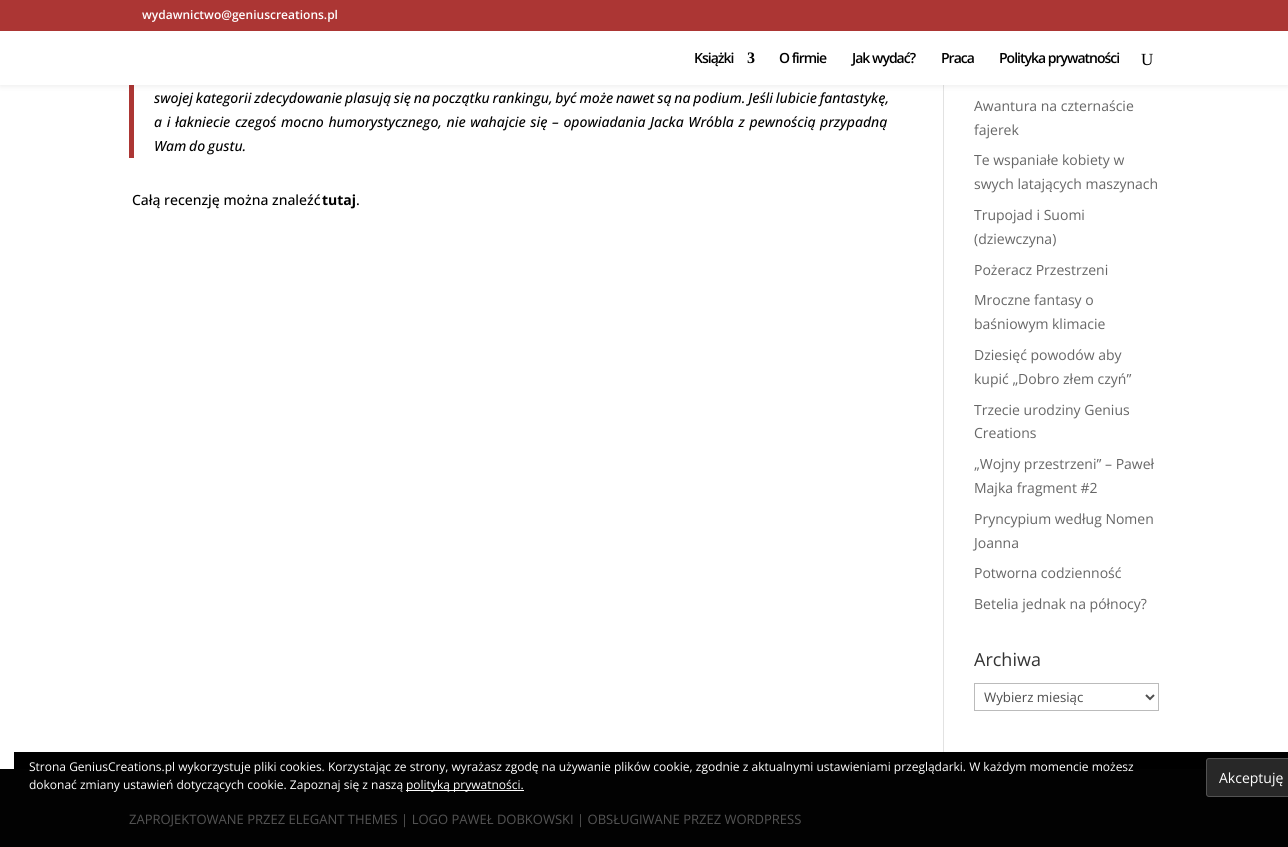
#include <cairo/cairo.h>
#include <math.h>
#include <stddef.h>

static cairo_t *cr;

static void use_color(int r, int g, int b) {
  cairo_set_source_rgb(cr, r / 255.0, g / 255.0, b / 255.0);
}

static void text(double x, double y, const char *s, const char *family, double size, int italic, int bold, int r, int g, int b) {
  cairo_select_font_face(cr, family, italic ? CAIRO_FONT_SLANT_ITALIC : CAIRO_FONT_SLANT_NORMAL,
    bold ? CAIRO_FONT_WEIGHT_BOLD : CAIRO_FONT_WEIGHT_NORMAL);
  cairo_set_font_size(cr, size);
  use_color(r, g, b);
  cairo_move_to(cr, x, y);
  cairo_show_text(cr, s);
}

static void spaced_text(double x, double y, const char *s, double letter, double word) {
  cairo_move_to(cr, x, y);
  while (*s) {
    char ch[5] = {0};
    int n = 0;
    do ch[n++] = *s++; while ((*s & 0xC0) == 0x80);
    cairo_show_text(cr, ch);
    cairo_rel_move_to(cr, letter + word * (*ch == ' '), 0);
  }
}

static void box(double x, double y, double w, double h, int r, int g, int b) {
  use_color(r, g, b);
  cairo_rectangle(cr, x, y, w, h);
  cairo_fill(cr);
}

static void round_rect(double x, double y, double w, double h, double r) {
  cairo_new_sub_path(cr);
  cairo_arc(cr, x + w - r, y + h - r, r, 0, M_PI / 2);
  cairo_arc(cr, x + r, y + h - r, r, M_PI / 2, M_PI);
  cairo_arc(cr, x + r, y + r, r, M_PI, 1.5 * M_PI);
  cairo_arc(cr, x + w - r, y + r, r, 1.5 * M_PI, 2 * M_PI);
  cairo_close_path(cr);
}

static void shadow(double x, double y, double w, double h, double r, double blur, double alpha) {
  cairo_push_group_with_content(cr, CAIRO_CONTENT_ALPHA);
  cairo_set_operator(cr, CAIRO_OPERATOR_SOURCE);
  for (int i = 15; i >= -15 && fmin(w, h) + blur * i / 3 > 0; i -= 2) {
    double e = blur * i / 6;
    cairo_set_source_rgba(cr, 0, 0, 0, alpha * erfc((i - 1) / 8.5) / 2);
    round_rect(x - e, y - e, w + 2 * e, h + 2 * e, fmax(0, fmin(r + e + blur * .6, fmin(w, h) / 2 + e)));
    cairo_fill(cr);
  }
  cairo_pattern_t *soft = cairo_pop_group(cr);
  cairo_mask(cr, soft);
  cairo_pattern_destroy(soft);
}

static void draw(void) {
  use_color(255, 255, 255);
  cairo_paint(cr);
  box(943, 85, 1, 667, 226, 226, 226);
  box(129, 85, 5, 73, 172, 54, 52);
  use_color(0, 0, 0);
  shadow(0, 31, 1288, 54, 0, 3.5, 0.1);
  box(0, 0, 1288, 31, 172, 54, 52);
  box(0, 31, 1288, 54, 255, 255, 255);
  cairo_rectangle(cr, 974.5, 683.5, 184, 27);
  use_color(187, 187, 187);
  cairo_set_line_width(cr, 1);
  cairo_stroke(cr);
  cairo_new_path(cr);
  cairo_move_to(cr, 1146, 695);
  cairo_line_to(cr, 1150, 699);
  cairo_line_to(cr, 1154, 695);
  use_color(78, 78, 78);
  cairo_set_line_width(cr, 2);
  cairo_stroke(cr);
  box(14, 752, 1274, 17, 0, 0, 0);
  box(0, 769, 1288, 78, 2, 2, 2);
  box(406, 790, 118, 1, 255, 255, 255);
  use_color(40, 40, 40);
  round_rect(1206.5, 758.5, 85, 38, 2.5);
  cairo_fill_preserve(cr);
  use_color(83, 83, 83);
  cairo_set_line_width(cr, 1);
  cairo_stroke(cr);
  text(142, 19, "wydawnictwo@geniuscreations.pl", "Open Sans SemiBold", 12, 0, 0, 255, 255, 255);
  cairo_set_font_size(cr, 14);
  use_color(0, 0, 0);
  spaced_text(694, 63, "Książki", -1, 0);
  cairo_select_font_face(cr, "Liberation Serif", CAIRO_FONT_SLANT_NORMAL, CAIRO_FONT_WEIGHT_BOLD);
  cairo_set_font_size(cr, 16);
  spaced_text(747, 63, "3", -1, 0);
  cairo_select_font_face(cr, "Open Sans SemiBold", CAIRO_FONT_SLANT_NORMAL, CAIRO_FONT_WEIGHT_NORMAL);
  cairo_set_font_size(cr, 14);
  spaced_text(779, 63, "O firmie", -1, 0);
  spaced_text(852, 63, "Jak wydać?", -1, 0);
  spaced_text(941, 63, "Praca", -1, 0);
  spaced_text(999, 63, "Polityka prywatności", -1, 0);
  text(1141, 65, "U", "Liberation Serif", 17, 0, 0, 0, 0, 0);
  cairo_select_font_face(cr, "Open Sans Medium", CAIRO_FONT_SLANT_ITALIC, CAIRO_FONT_WEIGHT_NORMAL);
  cairo_set_font_size(cr, 14);
  spaced_text(154, 103, "swojej kategorii zdecydowanie plasują się na początku rankingu, być może nawet są na podium. Jeśli lubicie fantastykę,", 0, -0.8);
  spaced_text(154, 127, "a i łakniecie czegoś mocno humorystycznego, nie wahajcie się – opowiadania Jacka Wróbla z pewnością przypadną", 0, 1);
  spaced_text(154, 151, "Wam do gustu.", 0, -1);
  text(132, 205, "Całą recenzję można znaleźć", "Open Sans Medium", 14, 0, 0, 0, 0, 0);
  text(322, 205, "tutaj", "Open Sans", 14, 0, 1, 0, 0, 0);
  text(356, 205, ".", "Open Sans Medium", 14, 0, 0, 0, 0, 0);
  text(974, 111, "Awantura na czternaście", "Open Sans", 14, 0, 0, 102, 102, 102);
  text(974, 135, "fajerek", "Open Sans", 14, 0, 0, 102, 102, 102);
  text(974, 165, "Te wspaniałe kobiety w", "Open Sans", 14, 0, 0, 102, 102, 102);
  text(974, 189, "swych latających maszynach", "Open Sans", 14, 0, 0, 102, 102, 102);
  text(974, 220, "Trupojad i Suomi", "Open Sans", 14, 0, 0, 102, 102, 102);
  text(974, 244, "(dziewczyna)", "Open Sans", 14, 0, 0, 102, 102, 102);
  text(974, 275, "Pożeracz Przestrzeni", "Open Sans", 14, 0, 0, 102, 102, 102);
  text(974, 305, "Mroczne fantasy o", "Open Sans", 14, 0, 0, 102, 102, 102);
  text(974, 329, "baśniowym klimacie", "Open Sans", 14, 0, 0, 102, 102, 102);
  text(974, 360, "Dziesięć powodów aby", "Open Sans", 14, 0, 0, 102, 102, 102);
  text(974, 384, "kupić „Dobro złem czyń”", "Open Sans", 14, 0, 0, 102, 102, 102);
  text(974, 415, "Trzecie urodziny Genius", "Open Sans", 14, 0, 0, 102, 102, 102);
  text(974, 438, "Creations", "Open Sans", 14, 0, 0, 102, 102, 102);
  text(974, 469, "„Wojny przestrzeni” – Paweł", "Open Sans", 14, 0, 0, 102, 102, 102);
  text(974, 493, "Majka fragment #2", "Open Sans", 14, 0, 0, 102, 102, 102);
  text(974, 524, "Pryncypium według Nomen", "Open Sans", 14, 0, 0, 102, 102, 102);
  text(974, 548, "Joanna", "Open Sans", 14, 0, 0, 102, 102, 102);
  text(974, 578, "Potworna codzienność", "Open Sans", 14, 0, 0, 102, 102, 102);
  text(974, 609, "Betelia jednak na północy?", "Open Sans", 14, 0, 0, 102, 102, 102);
  text(974, 666, "Archiwa", "Open Sans", 18, 0, 0, 51, 51, 51);
  text(984, 702, "Wybierz miesiąc", "Open Sans", 13.25, 0, 0, 78, 78, 78);
  text(29, 771, "Strona GeniusCreations.pl wykorzystuje pliki cookies. Korzystając ze strony, wyrażasz zgodę na używanie plików cookie, zgodnie z aktualnymi ustawieniami przeglądarki. W każdym momencie możesz", "Open Sans", 12, 0, 0, 255, 255, 255);
  text(29, 789, "dokonać zmiany ustawień dotyczących cookie. Zapoznaj się z naszą", "Open Sans", 12, 0, 0, 255, 255, 255);
  text(406, 789, "polityką prywatności.", "Open Sans", 12, 0, 0, 255, 255, 255);
  text(1219, 783, "Akceptuję", "Open Sans", 14, 0, 0, 255, 255, 255);
  text(129, 824, "ZAPROJEKTOWANE PRZEZ ELEGANT THEMES | LOGO PAWEŁ DOBKOWSKI | OBSŁUGIWANE PRZEZ WORDPRESS", "Open Sans", 13, 0, 0, 84, 84, 84);
}

int main(void) {
  cairo_surface_t *surface = cairo_image_surface_create(CAIRO_FORMAT_RGB24, 1288, 847);
  cr = cairo_create(surface);
  cairo_font_options_t *options = cairo_font_options_create();
  cairo_font_options_set_hint_metrics(options, CAIRO_HINT_METRICS_OFF);
  cairo_font_options_set_hint_style(options, CAIRO_HINT_STYLE_NONE);
  cairo_set_font_options(cr, options);
  cairo_set_miter_limit(cr, 4);
  draw();
  cairo_surface_write_to_png(surface, "out.png");
  cairo_font_options_destroy(options);
  cairo_destroy(cr);
  cairo_surface_destroy(surface);
  return 0;
}
